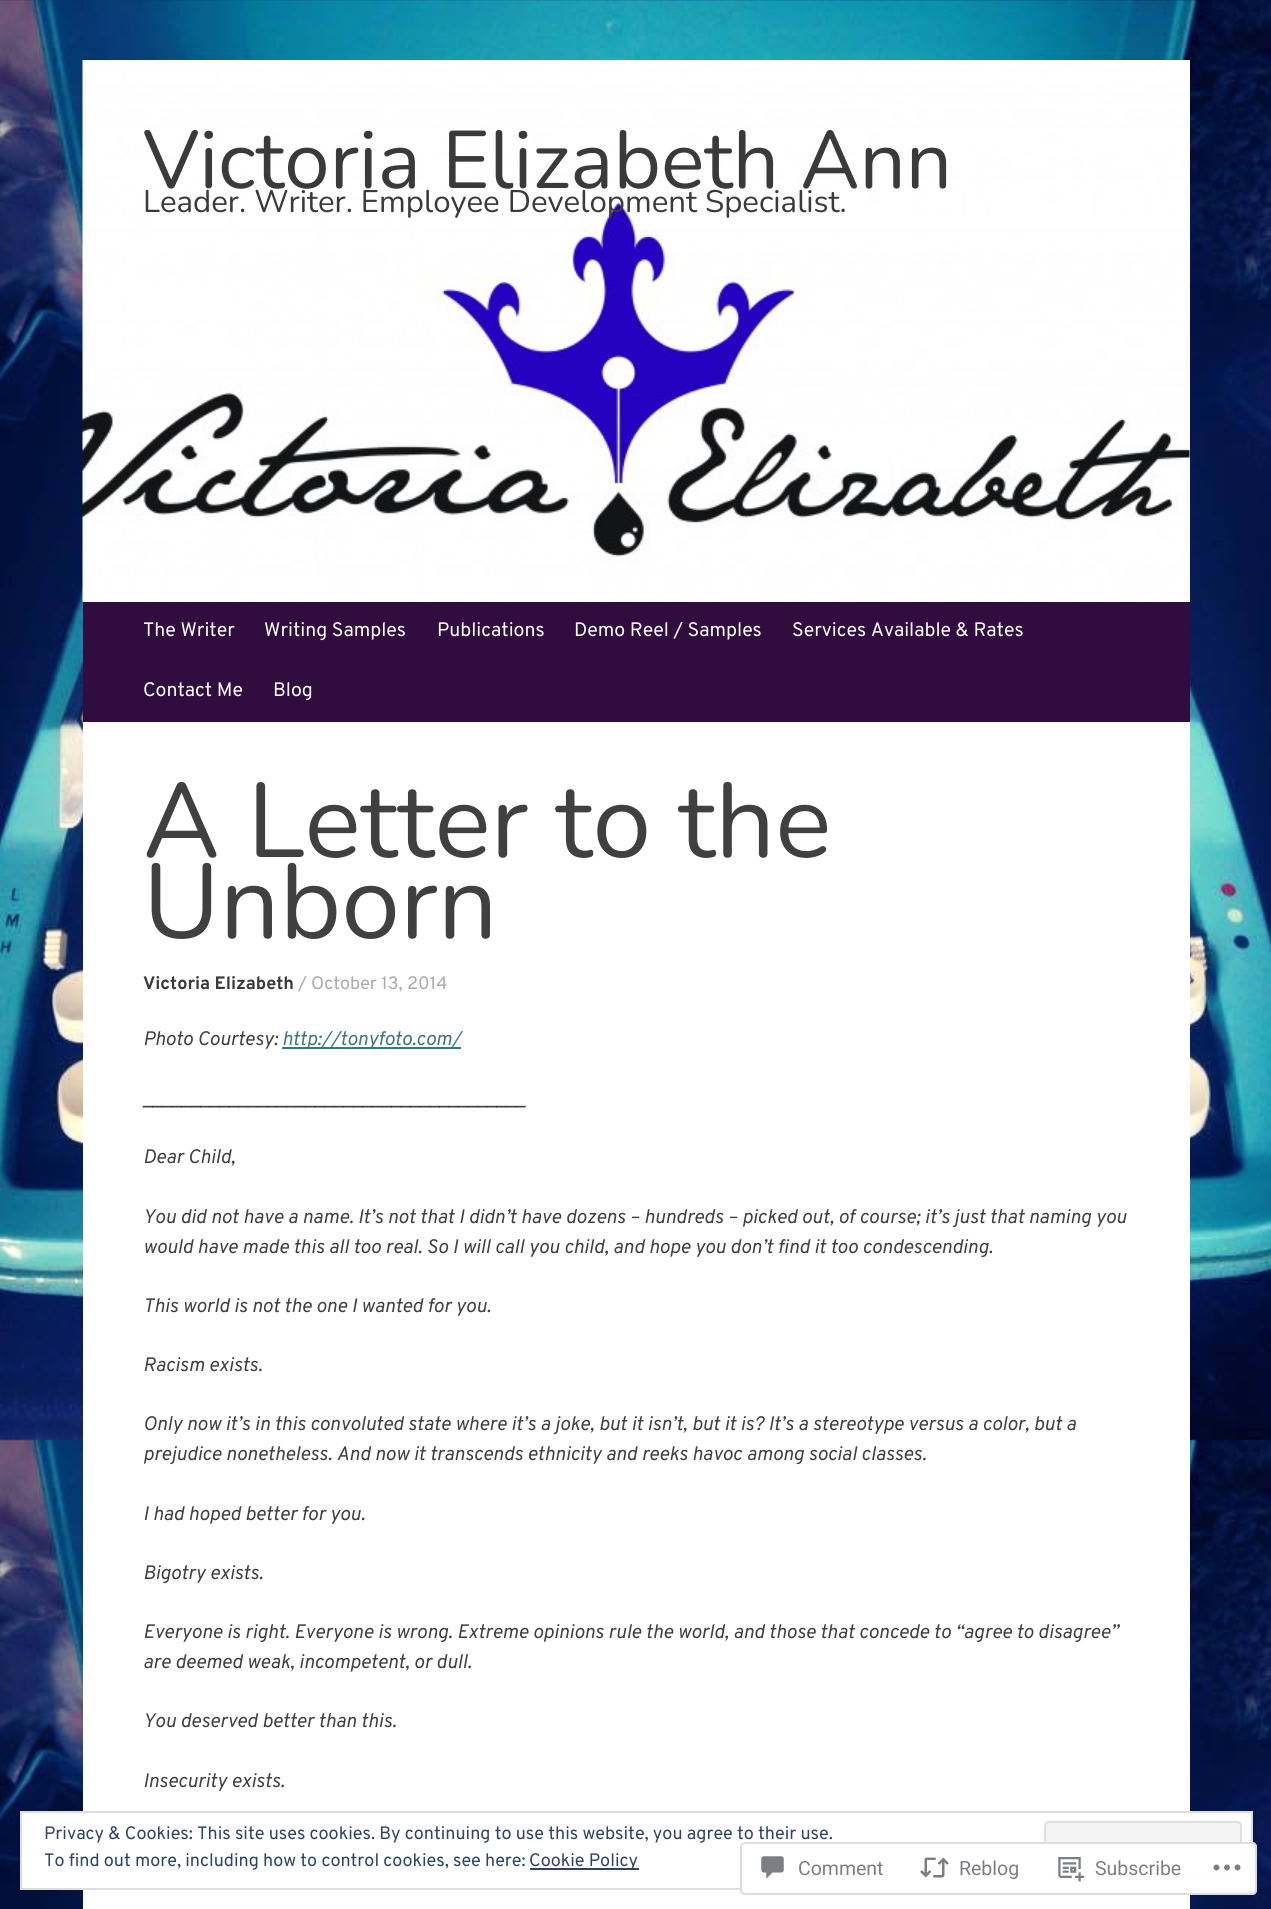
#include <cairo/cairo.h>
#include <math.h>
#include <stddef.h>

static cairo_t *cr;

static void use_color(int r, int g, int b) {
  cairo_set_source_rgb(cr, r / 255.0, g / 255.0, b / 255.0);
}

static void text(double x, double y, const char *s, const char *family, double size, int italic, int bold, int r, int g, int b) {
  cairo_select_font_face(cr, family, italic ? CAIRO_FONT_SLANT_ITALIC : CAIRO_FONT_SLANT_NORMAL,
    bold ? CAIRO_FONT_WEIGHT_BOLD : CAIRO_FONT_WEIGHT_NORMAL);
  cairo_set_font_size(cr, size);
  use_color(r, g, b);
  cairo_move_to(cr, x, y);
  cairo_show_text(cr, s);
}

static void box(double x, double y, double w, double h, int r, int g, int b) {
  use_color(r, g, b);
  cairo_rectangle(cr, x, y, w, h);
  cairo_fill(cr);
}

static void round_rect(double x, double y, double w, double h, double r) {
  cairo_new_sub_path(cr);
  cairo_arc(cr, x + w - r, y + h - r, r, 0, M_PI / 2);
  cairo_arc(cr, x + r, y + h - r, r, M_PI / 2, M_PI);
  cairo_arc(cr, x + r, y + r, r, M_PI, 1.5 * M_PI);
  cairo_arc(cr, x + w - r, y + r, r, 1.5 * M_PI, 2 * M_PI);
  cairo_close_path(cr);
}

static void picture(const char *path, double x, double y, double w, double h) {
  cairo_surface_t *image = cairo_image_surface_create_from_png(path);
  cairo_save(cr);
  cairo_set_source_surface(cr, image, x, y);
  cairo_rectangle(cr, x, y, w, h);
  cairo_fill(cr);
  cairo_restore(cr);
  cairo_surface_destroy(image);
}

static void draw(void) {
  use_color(255, 255, 255);
  cairo_paint(cr);
  picture("img_01.png", 0, 0, 1271, 1909);
  box(83, 60, 1107, 1849, 255, 255, 255);
  picture("img_02.png", 82, 60, 1108, 542);
  box(83, 602, 1107, 120, 48, 12, 63);
  box(282, 1047, 179, 2, 59, 119, 123);
  use_color(255, 255, 255);
  cairo_rectangle(cr, 21, 1812, 1231, 77);
  cairo_fill_preserve(cr);
  use_color(222, 222, 222);
  cairo_stroke(cr);
  use_color(243, 243, 243);
  round_rect(1045, 1822, 196, 57, 4);
  cairo_fill_preserve(cr);
  use_color(222, 222, 222);
  cairo_stroke(cr);
  box(530, 1868, 109, 2, 46, 68, 103);
  text(143, 188, "Victoria Elizabeth Ann", "Nunito ExtraLight", 81.5, 0, 0, 58, 58, 58);
  text(143, 212, "Leader. Writer. Employee Development Specialist.", "Nunito ExtraLight", 31.2, 0, 0, 58, 58, 58);
  text(143, 636, "The Writer", "Overpass", 19.5, 0, 0, 255, 255, 255);
  text(264, 636, "Writing Samples", "Overpass", 19.5, 0, 0, 255, 255, 255);
  text(437, 636, "Publications", "Overpass", 19.5, 0, 0, 255, 255, 255);
  text(574, 636, "Demo Reel / Samples", "Overpass", 19.5, 0, 0, 255, 255, 255);
  text(792, 636, "Services Available & Rates", "Overpass", 19.5, 0, 0, 255, 255, 255);
  text(143, 696, "Contact Me", "Overpass", 19.5, 0, 0, 255, 255, 255);
  text(273, 696, "Blog", "Overpass", 19.5, 0, 0, 255, 255, 255);
  text(143, 857, "A Letter to the", "Nunito ExtraLight", 105.5, 0, 0, 64, 64, 64);
  text(143, 938, "Unborn", "Nunito ExtraLight", 105.5, 0, 0, 64, 64, 64);
  text(143, 989, "Victoria Elizabeth", "Overpass", 18, 0, 1, 58, 58, 58);
  text(298, 989, "/ October 13, 2014", "Overpass", 18, 0, 0, 170, 170, 170);
  text(143, 1045, "Photo Courtesy:", "Overpass", 19.5, 1, 0, 64, 64, 64);
  text(282, 1045, "http://tonyfoto.com/", "Overpass", 19.5, 1, 0, 59, 119, 123);
  text(143, 1104, "________________________________________", "Overpass", 19.5, 0, 0, 64, 64, 64);
  text(143, 1163, "Dear Child,", "Overpass", 19.5, 1, 0, 64, 64, 64);
  text(143, 1223, "You did not have a name. It’s not that I didn’t have dozens – hundreds – picked out, of course; it’s just that naming you", "Overpass", 19.5, 1, 0, 64, 64, 64);
  text(143, 1253, "would have made this all too real. So I will call you child, and hope you don’t find it too condescending.", "Overpass", 19.5, 1, 0, 64, 64, 64);
  text(143, 1312, "This world is not the one I wanted for you.", "Overpass", 19.5, 1, 0, 64, 64, 64);
  text(143, 1371, "Racism exists.", "Overpass", 19.5, 1, 0, 64, 64, 64);
  text(143, 1430, "Only now it’s in this convoluted state where it’s a joke, but it isn’t, but it is? It’s a stereotype versus a color, but a", "Overpass", 19.5, 1, 0, 64, 64, 64);
  text(143, 1460, "prejudice nonetheless. And now it transcends ethnicity and reeks havoc among social classes.", "Overpass", 19.5, 1, 0, 64, 64, 64);
  text(143, 1520, "I had hoped better for you.", "Overpass", 19.5, 1, 0, 64, 64, 64);
  text(143, 1579, "Bigotry exists.", "Overpass", 19.5, 1, 0, 64, 64, 64);
  text(143, 1638, "Everyone is right. Everyone is wrong. Extreme opinions rule the world, and those that concede to “agree to disagree”", "Overpass", 19.5, 1, 0, 64, 64, 64);
  text(143, 1668, "are deemed weak, incompetent, or dull.", "Overpass", 19.5, 1, 0, 64, 64, 64);
  text(143, 1727, "You deserved better than this.", "Overpass", 19.5, 1, 0, 64, 64, 64);
  text(143, 1787, "Insecurity exists.", "Overpass", 19.5, 1, 0, 64, 64, 64);
  text(44, 1839, "Privacy & Cookies: This site uses cookies. By continuing to use this website, you agree to their use.", "Overpass", 18, 0, 0, 46, 68, 103);
  text(44, 1866, "To find out more, including how to control cookies, see here:", "Overpass", 18, 0, 0, 46, 68, 103);
  text(529, 1866, "Cookie Policy", "Overpass", 18, 0, 0, 46, 68, 103);
  cairo_set_source_rgba(cr, 1, 1, 1, 0.98);
  round_rect(740, 1842, 517, 53, 5);
  cairo_fill(cr);
  round_rect(741, 1843, 515, 51, 4);
  cairo_set_source_rgba(cr, 0.863, 0.863, 0.871, 0.98);
  cairo_stroke(cr);
  picture("img_03.png", 761, 1856, 23, 23);
  text(798, 1875, "Comment", "Roboto", 19.5, 0, 0, 123, 127, 133);
  picture("img_04.png", 920, 1857, 29, 21);
  text(959, 1875, "Reblog", "Roboto", 19.5, 0, 0, 123, 127, 133);
  picture("img_05.png", 1058, 1857, 27, 25);
  text(1095, 1875, "Subscribe", "Roboto", 19.5, 0, 0, 123, 127, 133);
  picture("img_06.png", 1213, 1864, 28, 7);
}

int main(void) {
  cairo_surface_t *surface = cairo_image_surface_create(CAIRO_FORMAT_RGB24, 1271, 1909);
  cr = cairo_create(surface);
  cairo_font_options_t *options = cairo_font_options_create();
  cairo_font_options_set_hint_metrics(options, CAIRO_HINT_METRICS_OFF);
  cairo_font_options_set_hint_style(options, CAIRO_HINT_STYLE_NONE);
  cairo_set_font_options(cr, options);
  cairo_set_miter_limit(cr, 4);
  draw();
  cairo_surface_write_to_png(surface, "out.png");
  cairo_font_options_destroy(options);
  cairo_destroy(cr);
  cairo_surface_destroy(surface);
  return 0;
}
